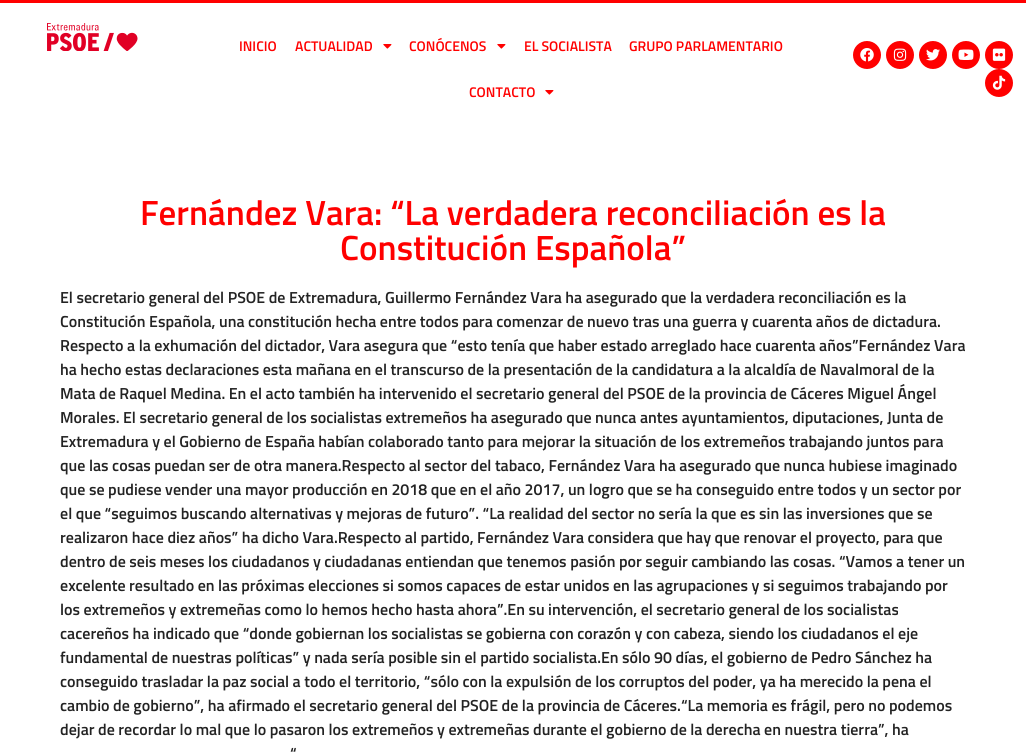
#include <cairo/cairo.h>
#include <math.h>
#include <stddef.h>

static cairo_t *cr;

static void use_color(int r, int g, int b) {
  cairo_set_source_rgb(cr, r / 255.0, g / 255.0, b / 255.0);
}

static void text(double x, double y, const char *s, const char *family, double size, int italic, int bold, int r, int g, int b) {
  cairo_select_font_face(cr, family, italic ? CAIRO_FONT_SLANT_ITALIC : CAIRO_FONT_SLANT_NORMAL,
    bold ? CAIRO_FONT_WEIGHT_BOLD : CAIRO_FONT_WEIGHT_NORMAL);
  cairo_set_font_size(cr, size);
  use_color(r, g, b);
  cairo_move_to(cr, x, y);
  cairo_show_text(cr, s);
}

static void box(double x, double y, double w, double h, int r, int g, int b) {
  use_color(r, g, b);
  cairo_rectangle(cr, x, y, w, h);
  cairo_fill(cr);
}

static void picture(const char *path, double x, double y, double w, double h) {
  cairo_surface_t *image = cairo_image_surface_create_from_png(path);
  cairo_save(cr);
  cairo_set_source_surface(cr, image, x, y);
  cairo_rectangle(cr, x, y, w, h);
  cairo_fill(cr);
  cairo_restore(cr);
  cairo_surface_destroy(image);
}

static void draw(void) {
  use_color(255, 255, 255);
  cairo_paint(cr);
  box(0, 0, 1026, 3, 255, 0, 0);
  picture("img_01.png", 47, 23, 91, 28);
  picture("img_02.png", 383, 44, 9, 5);
  picture("img_02.png", 497, 44, 9, 5);
  picture("img_02.png", 545, 90, 9, 5);
  cairo_arc(cr, 867, 55, 14, 0, 2 * M_PI);
  cairo_fill(cr);
  picture("img_03.png", 860, 48, 14, 14);
  cairo_arc(cr, 900, 55, 14, 0, 2 * M_PI);
  cairo_fill(cr);
  picture("img_04.png", 893, 48, 14, 13);
  cairo_arc(cr, 933, 55, 14, 0, 2 * M_PI);
  cairo_fill(cr);
  picture("img_05.png", 926, 49, 14, 12);
  cairo_arc(cr, 966, 55, 14, 0, 2 * M_PI);
  cairo_fill(cr);
  picture("img_06.png", 958, 49, 16, 11);
  cairo_arc(cr, 999, 55, 14, 0, 2 * M_PI);
  cairo_fill(cr);
  picture("img_07.png", 992, 48, 14, 13);
  cairo_arc(cr, 999, 83, 14, 0, 2 * M_PI);
  cairo_fill(cr);
  picture("img_08.png", 992, 75, 14, 15);
  text(239, 51, "INICIO", "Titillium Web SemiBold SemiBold", 14, 0, 0, 255, 0, 0);
  text(295, 51, "ACTUALIDAD", "Titillium Web SemiBold SemiBold", 14, 0, 0, 255, 0, 0);
  text(409, 51, "CONÓCENOS", "Titillium Web SemiBold SemiBold", 14, 0, 0, 255, 0, 0);
  text(524, 51, "EL SOCIALISTA", "Titillium Web SemiBold SemiBold", 14, 0, 0, 255, 0, 0);
  text(629, 51, "GRUPO PARLAMENTARIO", "Titillium Web SemiBold SemiBold", 14, 0, 0, 255, 0, 0);
  text(469, 97, "CONTACTO", "Titillium Web SemiBold SemiBold", 14, 0, 0, 255, 0, 0);
  text(140, 225, "Fernández Vara: “La verdadera reconciliación es la", "Titillium Web SemiBold SemiBold", 35, 0, 0, 255, 0, 0);
  text(340, 260, "Constitución Española”", "Titillium Web SemiBold SemiBold", 35, 0, 0, 255, 0, 0);
  text(60, 303, "El secretario general del PSOE de Extremadura, Guillermo Fernández Vara ha asegurado que la verdadera reconciliación es la", "Titillium Web SemiBold SemiBold", 16, 0, 0, 35, 35, 35);
  text(60, 327, "Constitución Española, una constitución hecha entre todos para comenzar de nuevo tras una guerra y cuarenta años de dictadura.", "Titillium Web SemiBold SemiBold", 16, 0, 0, 35, 35, 35);
  text(60, 351, "Respecto a la exhumación del dictador, Vara asegura que “esto tenía que haber estado arreglado hace cuarenta años”Fernández Vara", "Titillium Web SemiBold SemiBold", 16, 0, 0, 35, 35, 35);
  text(60, 375, "ha hecho estas declaraciones esta mañana en el transcurso de la presentación de la candidatura a la alcaldía de Navalmoral de la", "Titillium Web SemiBold SemiBold", 16, 0, 0, 35, 35, 35);
  text(60, 399, "Mata de Raquel Medina. En el acto también ha intervenido el secretario general del PSOE de la provincia de Cáceres Miguel Ángel", "Titillium Web SemiBold SemiBold", 16, 0, 0, 35, 35, 35);
  text(60, 423, "Morales. El secretario general de los socialistas extremeños ha asegurado que nunca antes ayuntamientos, diputaciones, Junta de", "Titillium Web SemiBold SemiBold", 16, 0, 0, 35, 35, 35);
  text(60, 447, "Extremadura y el Gobierno de España habían colaborado tanto para mejorar la situación de los extremeños trabajando juntos para", "Titillium Web SemiBold SemiBold", 16, 0, 0, 35, 35, 35);
  text(60, 471, "que las cosas puedan ser de otra manera.Respecto al sector del tabaco, Fernández Vara ha asegurado que nunca hubiese imaginado", "Titillium Web SemiBold SemiBold", 16, 0, 0, 35, 35, 35);
  text(60, 495, "que se pudiese vender una mayor producción en 2018 que en el año 2017, un logro que se ha conseguido entre todos y un sector por", "Titillium Web SemiBold SemiBold", 16, 0, 0, 35, 35, 35);
  text(60, 519, "el que “seguimos buscando alternativas y mejoras de futuro”. “La realidad del sector no sería la que es sin las inversiones que se", "Titillium Web SemiBold SemiBold", 16, 0, 0, 35, 35, 35);
  text(60, 543, "realizaron hace diez años” ha dicho Vara.Respecto al partido, Fernández Vara considera que hay que renovar el proyecto, para que", "Titillium Web SemiBold SemiBold", 16, 0, 0, 35, 35, 35);
  text(60, 567, "dentro de seis meses los ciudadanos y ciudadanas entiendan que tenemos pasión por seguir cambiando las cosas. “Vamos a tener un", "Titillium Web SemiBold SemiBold", 16, 0, 0, 35, 35, 35);
  text(60, 591, "excelente resultado en las próximas elecciones si somos capaces de estar unidos en las agrupaciones y si seguimos trabajando por", "Titillium Web SemiBold SemiBold", 16, 0, 0, 35, 35, 35);
  text(60, 615, "los extremeños y extremeñas como lo hemos hecho hasta ahora”.En su intervención, el secretario general de los socialistas", "Titillium Web SemiBold SemiBold", 16, 0, 0, 35, 35, 35);
  text(60, 639, "cacereños ha indicado que “donde gobiernan los socialistas se gobierna con corazón y con cabeza, siendo los ciudadanos el eje", "Titillium Web SemiBold SemiBold", 16, 0, 0, 35, 35, 35);
  text(60, 663, "fundamental de nuestras políticas” y nada sería posible sin el partido socialista.En sólo 90 días, el gobierno de Pedro Sánchez ha", "Titillium Web SemiBold SemiBold", 16, 0, 0, 35, 35, 35);
  text(60, 687, "conseguido trasladar la paz social a todo el territorio, “sólo con la expulsión de los corruptos del poder, ya ha merecido la pena el", "Titillium Web SemiBold SemiBold", 16, 0, 0, 35, 35, 35);
  text(60, 711, "cambio de gobierno”, ha afirmado el secretario general del PSOE de la provincia de Cáceres.“La memoria es frágil, pero no podemos", "Titillium Web SemiBold SemiBold", 16, 0, 0, 35, 35, 35);
  text(60, 735, "dejar de recordar lo mal que lo pasaron los extremeños y extremeñas durante el gobierno de la derecha en nuestra tierra”, ha", "Titillium Web SemiBold SemiBold", 16, 0, 0, 35, 35, 35);
  text(290, 759, "“", "Titillium Web SemiBold SemiBold", 16, 0, 0, 35, 35, 35);
}

int main(void) {
  cairo_surface_t *surface = cairo_image_surface_create(CAIRO_FORMAT_RGB24, 1026, 755);
  cr = cairo_create(surface);
  cairo_font_options_t *options = cairo_font_options_create();
  cairo_font_options_set_hint_metrics(options, CAIRO_HINT_METRICS_OFF);
  cairo_font_options_set_hint_style(options, CAIRO_HINT_STYLE_NONE);
  cairo_set_font_options(cr, options);
  cairo_set_miter_limit(cr, 4);
  draw();
  cairo_surface_write_to_png(surface, "out.png");
  cairo_font_options_destroy(options);
  cairo_destroy(cr);
  cairo_surface_destroy(surface);
  return 0;
}
